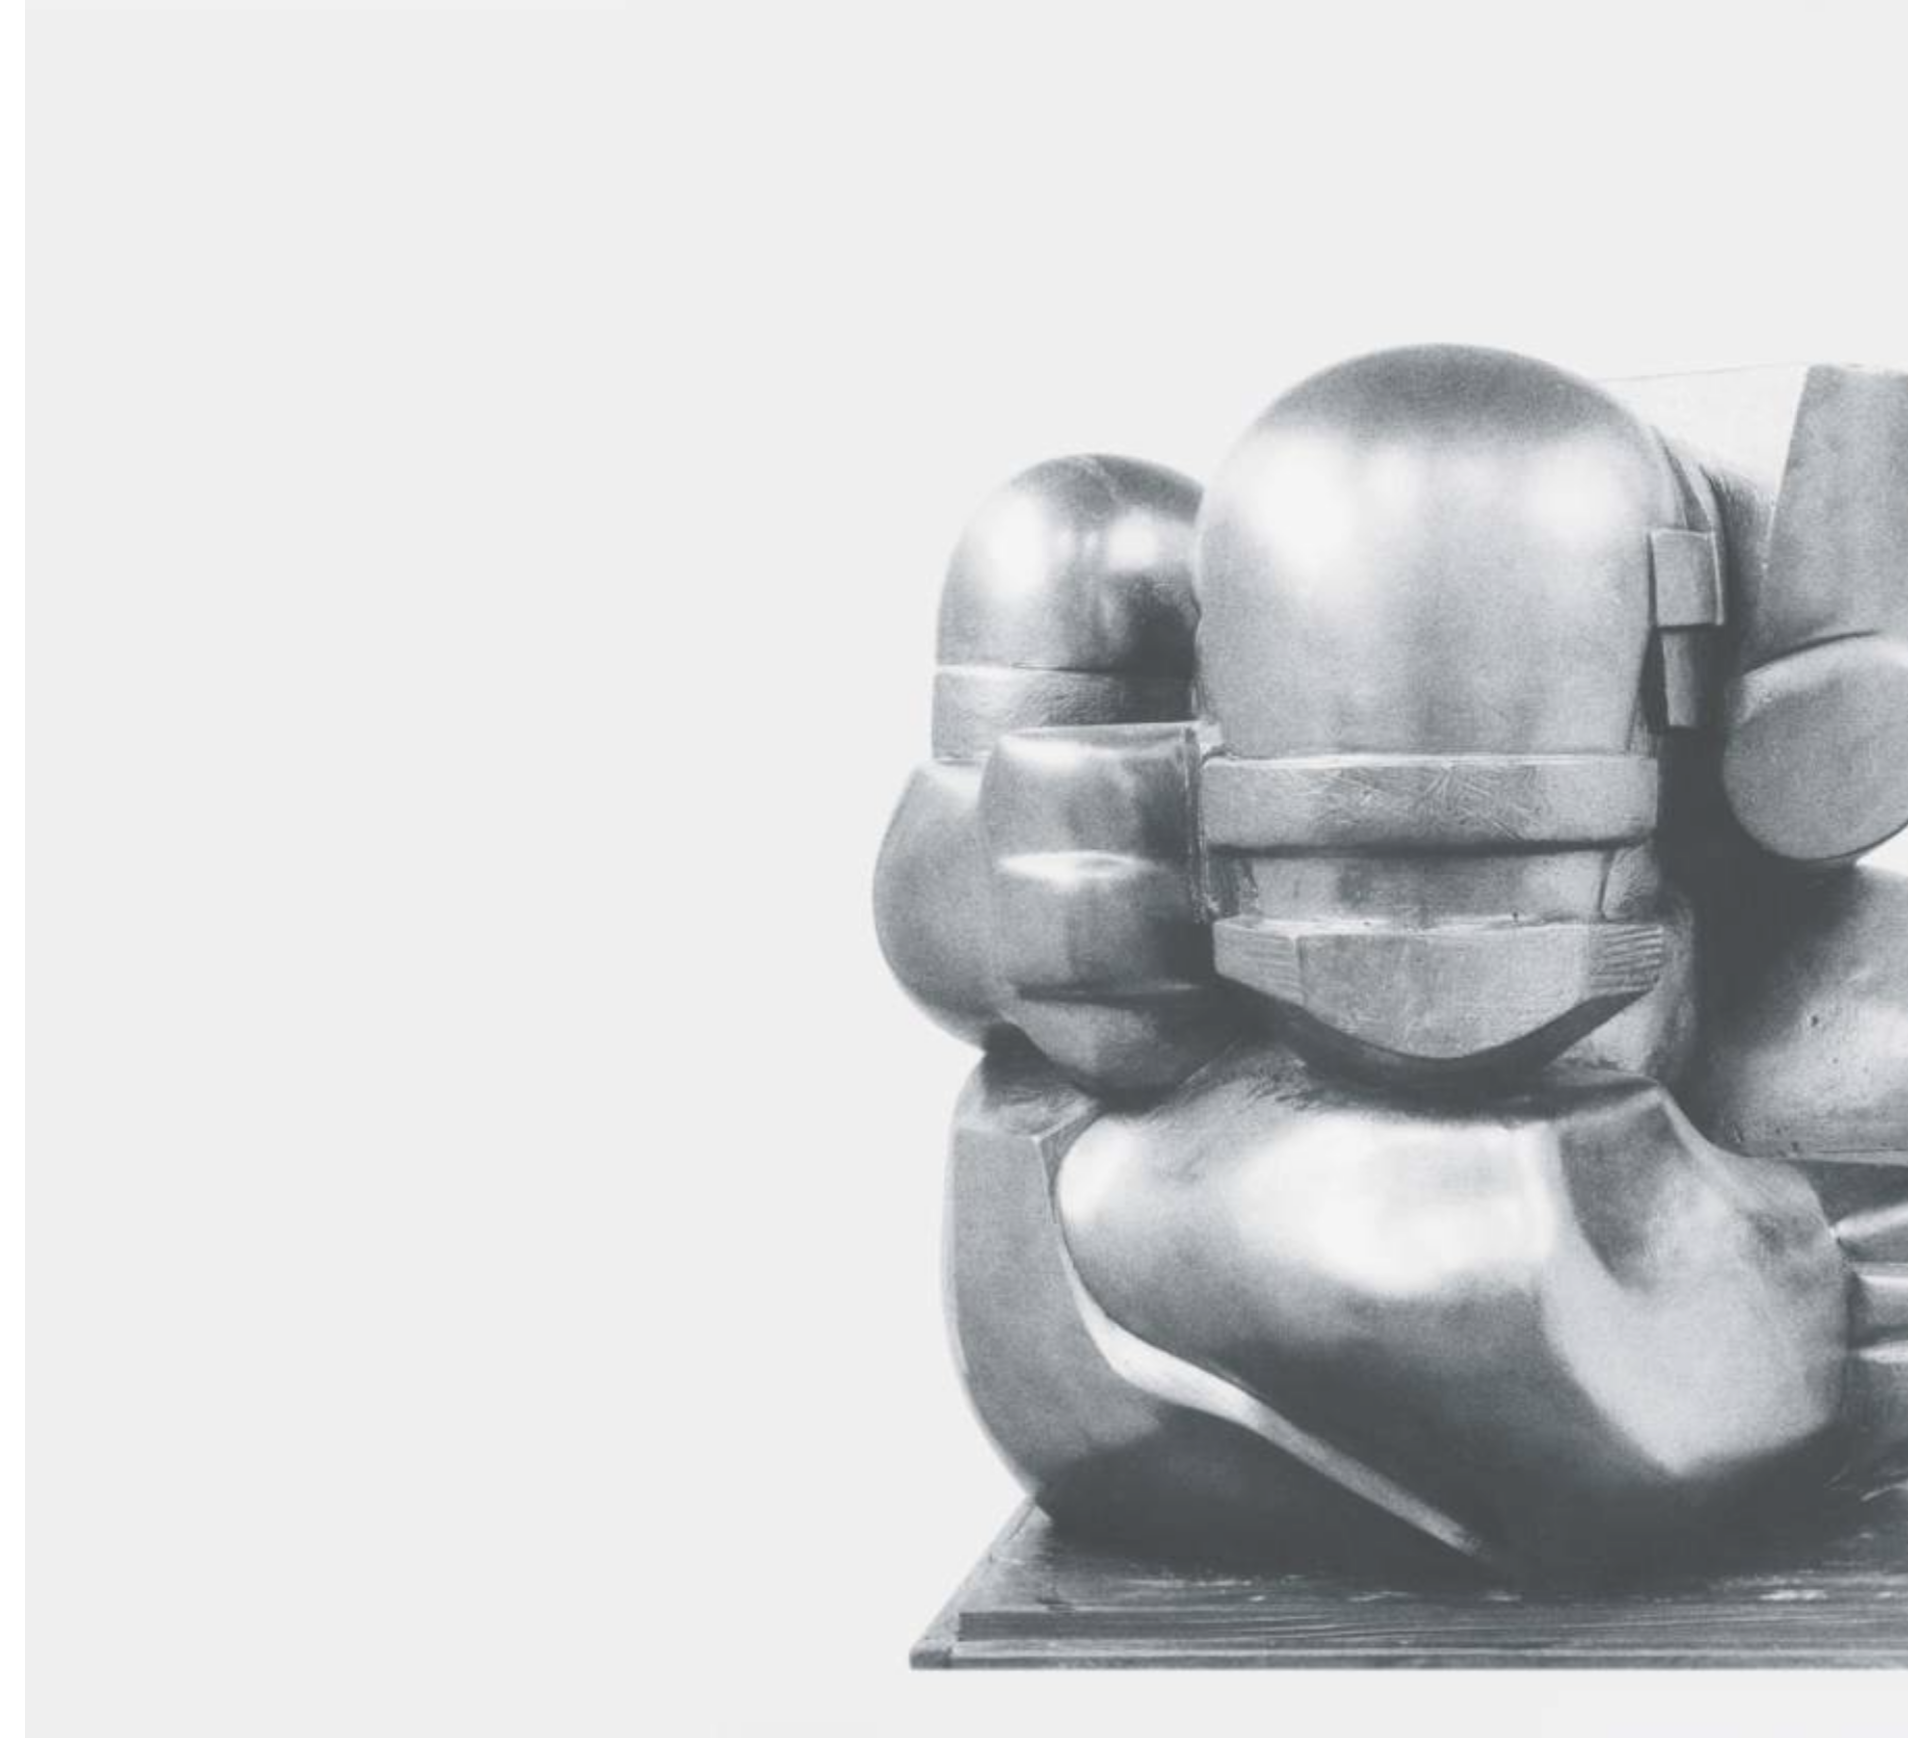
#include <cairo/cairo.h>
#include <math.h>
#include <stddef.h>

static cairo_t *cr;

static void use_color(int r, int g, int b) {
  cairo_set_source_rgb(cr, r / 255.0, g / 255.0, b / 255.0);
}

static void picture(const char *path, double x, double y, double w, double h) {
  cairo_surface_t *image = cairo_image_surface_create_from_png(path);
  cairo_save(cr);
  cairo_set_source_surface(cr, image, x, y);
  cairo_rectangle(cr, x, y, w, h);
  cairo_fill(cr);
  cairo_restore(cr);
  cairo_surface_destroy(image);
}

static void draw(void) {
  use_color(255, 255, 255);
  cairo_paint(cr);
  picture("img_01.png", 25, 0, 1883, 1738);
}

int main(void) {
  cairo_surface_t *surface = cairo_image_surface_create(CAIRO_FORMAT_RGB24, 1932, 1738);
  cr = cairo_create(surface);
  cairo_font_options_t *options = cairo_font_options_create();
  cairo_font_options_set_hint_metrics(options, CAIRO_HINT_METRICS_OFF);
  cairo_font_options_set_hint_style(options, CAIRO_HINT_STYLE_NONE);
  cairo_set_font_options(cr, options);
  cairo_set_miter_limit(cr, 4);
  draw();
  cairo_surface_write_to_png(surface, "out.png");
  cairo_font_options_destroy(options);
  cairo_destroy(cr);
  cairo_surface_destroy(surface);
  return 0;
}
